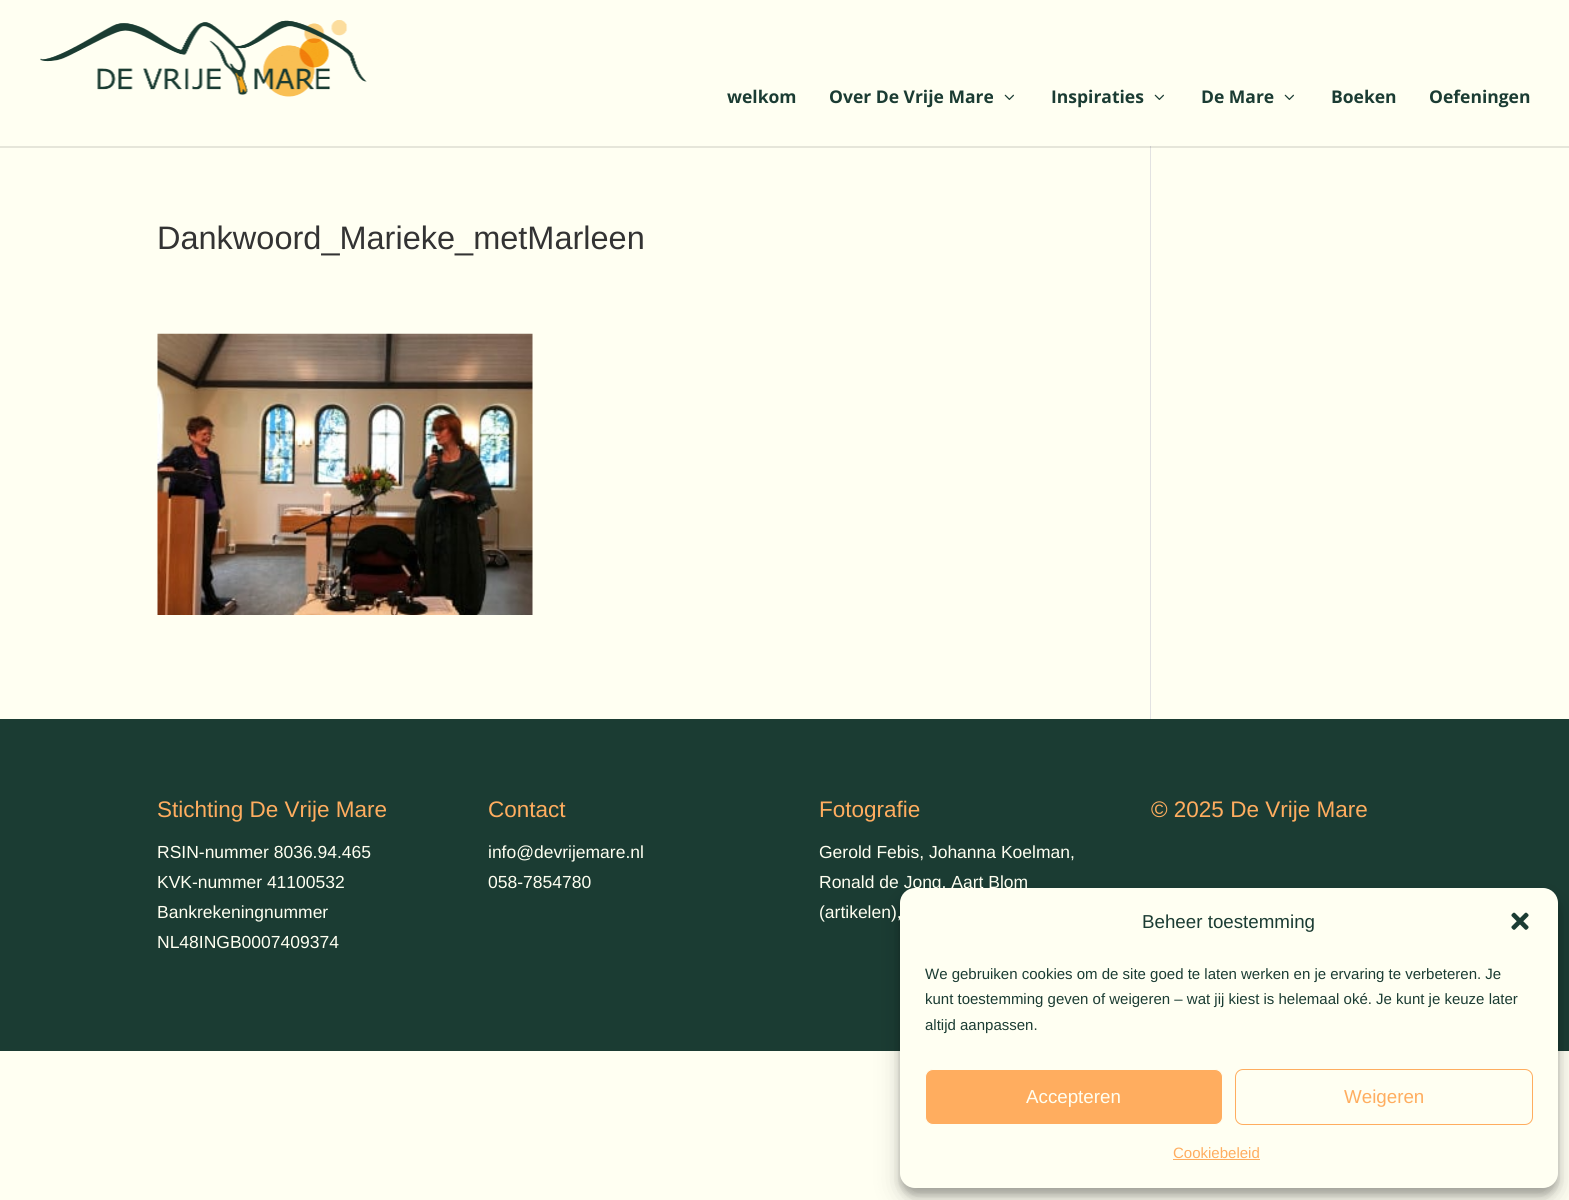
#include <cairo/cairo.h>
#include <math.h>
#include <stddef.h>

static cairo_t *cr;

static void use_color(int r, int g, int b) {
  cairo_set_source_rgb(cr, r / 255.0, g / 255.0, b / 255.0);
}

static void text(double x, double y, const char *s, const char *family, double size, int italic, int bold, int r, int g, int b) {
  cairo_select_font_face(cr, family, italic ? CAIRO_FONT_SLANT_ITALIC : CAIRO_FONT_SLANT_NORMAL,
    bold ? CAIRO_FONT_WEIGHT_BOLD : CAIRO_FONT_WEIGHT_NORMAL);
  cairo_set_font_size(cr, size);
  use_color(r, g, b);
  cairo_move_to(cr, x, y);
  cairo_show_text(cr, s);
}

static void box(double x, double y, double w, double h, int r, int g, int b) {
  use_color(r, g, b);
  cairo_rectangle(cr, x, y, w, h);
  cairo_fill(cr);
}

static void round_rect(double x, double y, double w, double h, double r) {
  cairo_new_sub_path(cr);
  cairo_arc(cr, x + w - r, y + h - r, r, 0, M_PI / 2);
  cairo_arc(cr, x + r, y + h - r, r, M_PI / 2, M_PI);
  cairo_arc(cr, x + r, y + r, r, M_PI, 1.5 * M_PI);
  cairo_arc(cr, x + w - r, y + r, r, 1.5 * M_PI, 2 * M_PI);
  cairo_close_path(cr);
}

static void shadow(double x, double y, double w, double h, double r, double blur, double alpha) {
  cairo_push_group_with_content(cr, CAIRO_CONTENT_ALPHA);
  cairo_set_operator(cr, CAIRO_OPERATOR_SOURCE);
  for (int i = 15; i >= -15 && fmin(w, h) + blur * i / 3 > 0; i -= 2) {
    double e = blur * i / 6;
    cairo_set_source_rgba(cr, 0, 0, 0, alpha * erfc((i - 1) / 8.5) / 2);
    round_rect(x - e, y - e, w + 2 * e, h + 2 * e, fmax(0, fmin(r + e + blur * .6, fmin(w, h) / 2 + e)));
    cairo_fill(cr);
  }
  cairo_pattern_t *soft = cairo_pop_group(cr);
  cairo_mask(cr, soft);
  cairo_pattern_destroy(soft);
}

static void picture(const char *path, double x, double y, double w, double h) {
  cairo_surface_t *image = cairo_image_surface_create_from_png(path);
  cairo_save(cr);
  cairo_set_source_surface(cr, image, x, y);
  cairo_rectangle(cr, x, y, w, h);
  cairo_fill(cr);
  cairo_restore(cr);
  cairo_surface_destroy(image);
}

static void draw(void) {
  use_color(255, 255, 242);
  cairo_paint(cr);
  box(0, 146, 1569, 2, 230, 230, 218);
  picture("img_01.png", 40, 20, 327, 77);
  picture("img_02.png", 1004, 94, 10, 6);
  picture("img_02.png", 1154, 94, 10, 6);
  picture("img_02.png", 1284, 94, 10, 6);
  picture("img_03.png", 157, 333, 376, 282);
  box(1150, 146, 1, 573, 226, 226, 226);
  box(1150, 146, 1, 2, 203, 203, 203);
  box(0, 719, 1569, 332, 27, 60, 51);
  use_color(0, 0, 0);
  shadow(900, 895, 658, 300, 15, 4, 0.23);
  shadow(900, 900, 658, 300, 15, 12.5, 0.19);
  text(727, 103, "welkom", "Open Sans", 17.5, 0, 1, 27, 60, 51);
  text(829, 103, "Over De Vrije Mare", "Open Sans", 17.5, 0, 1, 27, 60, 51);
  text(1051, 103, "Inspiraties", "Open Sans", 17.5, 0, 1, 27, 60, 51);
  text(1201, 103, "De Mare", "Open Sans", 17.5, 0, 1, 27, 60, 51);
  text(1331, 103, "Boeken", "Open Sans", 17.5, 0, 1, 27, 60, 51);
  text(1429, 103, "Oefeningen", "Open Sans", 17.5, 0, 1, 27, 60, 51);
  text(157, 249, "Dankwoord_Marieke_metMarleen", "Liberation Sans", 32.5, 0, 0, 51, 51, 51);
  text(157, 817, "Stichting De Vrije Mare", "Liberation Sans", 22.5, 0, 0, 255, 173, 95);
  text(157, 858, "RSIN-nummer 8036.94.465", "Liberation Sans", 17.5, 0, 0, 255, 255, 241);
  text(157, 888, "KVK-nummer 41100532", "Liberation Sans", 17.5, 0, 0, 255, 255, 241);
  text(157, 918, "Bankrekeningnummer", "Liberation Sans", 17.5, 0, 0, 255, 255, 241);
  text(157, 948, "NL48INGB0007409374", "Liberation Sans", 17.5, 0, 0, 255, 255, 241);
  text(488, 817, "Contact", "Liberation Sans", 22.5, 0, 0, 255, 173, 95);
  text(488, 858, "info@devrijemare.nl", "Liberation Sans", 17.5, 0, 0, 255, 255, 241);
  text(488, 888, "058-7854780", "Liberation Sans", 17.5, 0, 0, 255, 255, 241);
  text(819, 817, "Fotografie", "Liberation Sans", 22.5, 0, 0, 255, 173, 95);
  text(819, 858, "Gerold Febis, Johanna Koelman,", "Liberation Sans", 17.5, 0, 0, 255, 255, 241);
  text(819, 888, "Ronald de Jong, Aart Blom", "Liberation Sans", 17.5, 0, 0, 255, 255, 241);
  text(819, 918, "(artikelen),", "Liberation Sans", 17.5, 0, 0, 255, 255, 241);
  text(1151, 817, "© 2025 De Vrije Mare", "Liberation Sans", 22.5, 0, 0, 255, 173, 95);
  use_color(255, 255, 242);
  round_rect(900, 888, 658, 300, 15);
  cairo_fill(cr);
  text(1142, 928, "Beheer toestemming", "Liberation Sans", 18.75, 0, 0, 27, 60, 51);
  picture("img_04.png", 1511, 912, 18, 18);
  text(925, 979, "We gebruiken cookies om de site goed te laten werken en je ervaring te verbeteren. Je", "Liberation Sans", 15, 0, 0, 27, 60, 51);
  text(925, 1004, "kunt toestemming geven of weigeren – wat jij kiest is helemaal oké. Je kunt je keuze later", "Liberation Sans", 15, 0, 0, 27, 60, 51);
  text(925, 1030, "altijd aanpassen.", "Liberation Sans", 15, 0, 0, 27, 60, 51);
  use_color(255, 173, 95);
  round_rect(925.5, 1069.5, 297, 55, 7.5);
  cairo_fill_preserve(cr);
  use_color(255, 255, 242);
  cairo_set_line_width(cr, 1);
  cairo_stroke(cr);
  text(1026, 1103, "Accepteren", "Liberation Sans", 18.75, 0, 0, 255, 255, 241);
  round_rect(1235.5, 1069.5, 297, 55, 7.5);
  use_color(255, 173, 95);
  cairo_stroke(cr);
  text(1344, 1103, "Weigeren", "Liberation Sans", 18.75, 0, 0, 255, 173, 95);
  text(1173, 1158, "Cookiebeleid", "Liberation Sans", 15, 0, 0, 255, 173, 95);
  box(1173, 1159, 87, 1, 255, 173, 95);
}

int main(void) {
  cairo_surface_t *surface = cairo_image_surface_create(CAIRO_FORMAT_RGB24, 1569, 1200);
  cr = cairo_create(surface);
  cairo_font_options_t *options = cairo_font_options_create();
  cairo_font_options_set_hint_metrics(options, CAIRO_HINT_METRICS_OFF);
  cairo_font_options_set_hint_style(options, CAIRO_HINT_STYLE_NONE);
  cairo_set_font_options(cr, options);
  cairo_set_miter_limit(cr, 4);
  draw();
  cairo_surface_write_to_png(surface, "out.png");
  cairo_font_options_destroy(options);
  cairo_destroy(cr);
  cairo_surface_destroy(surface);
  return 0;
}
